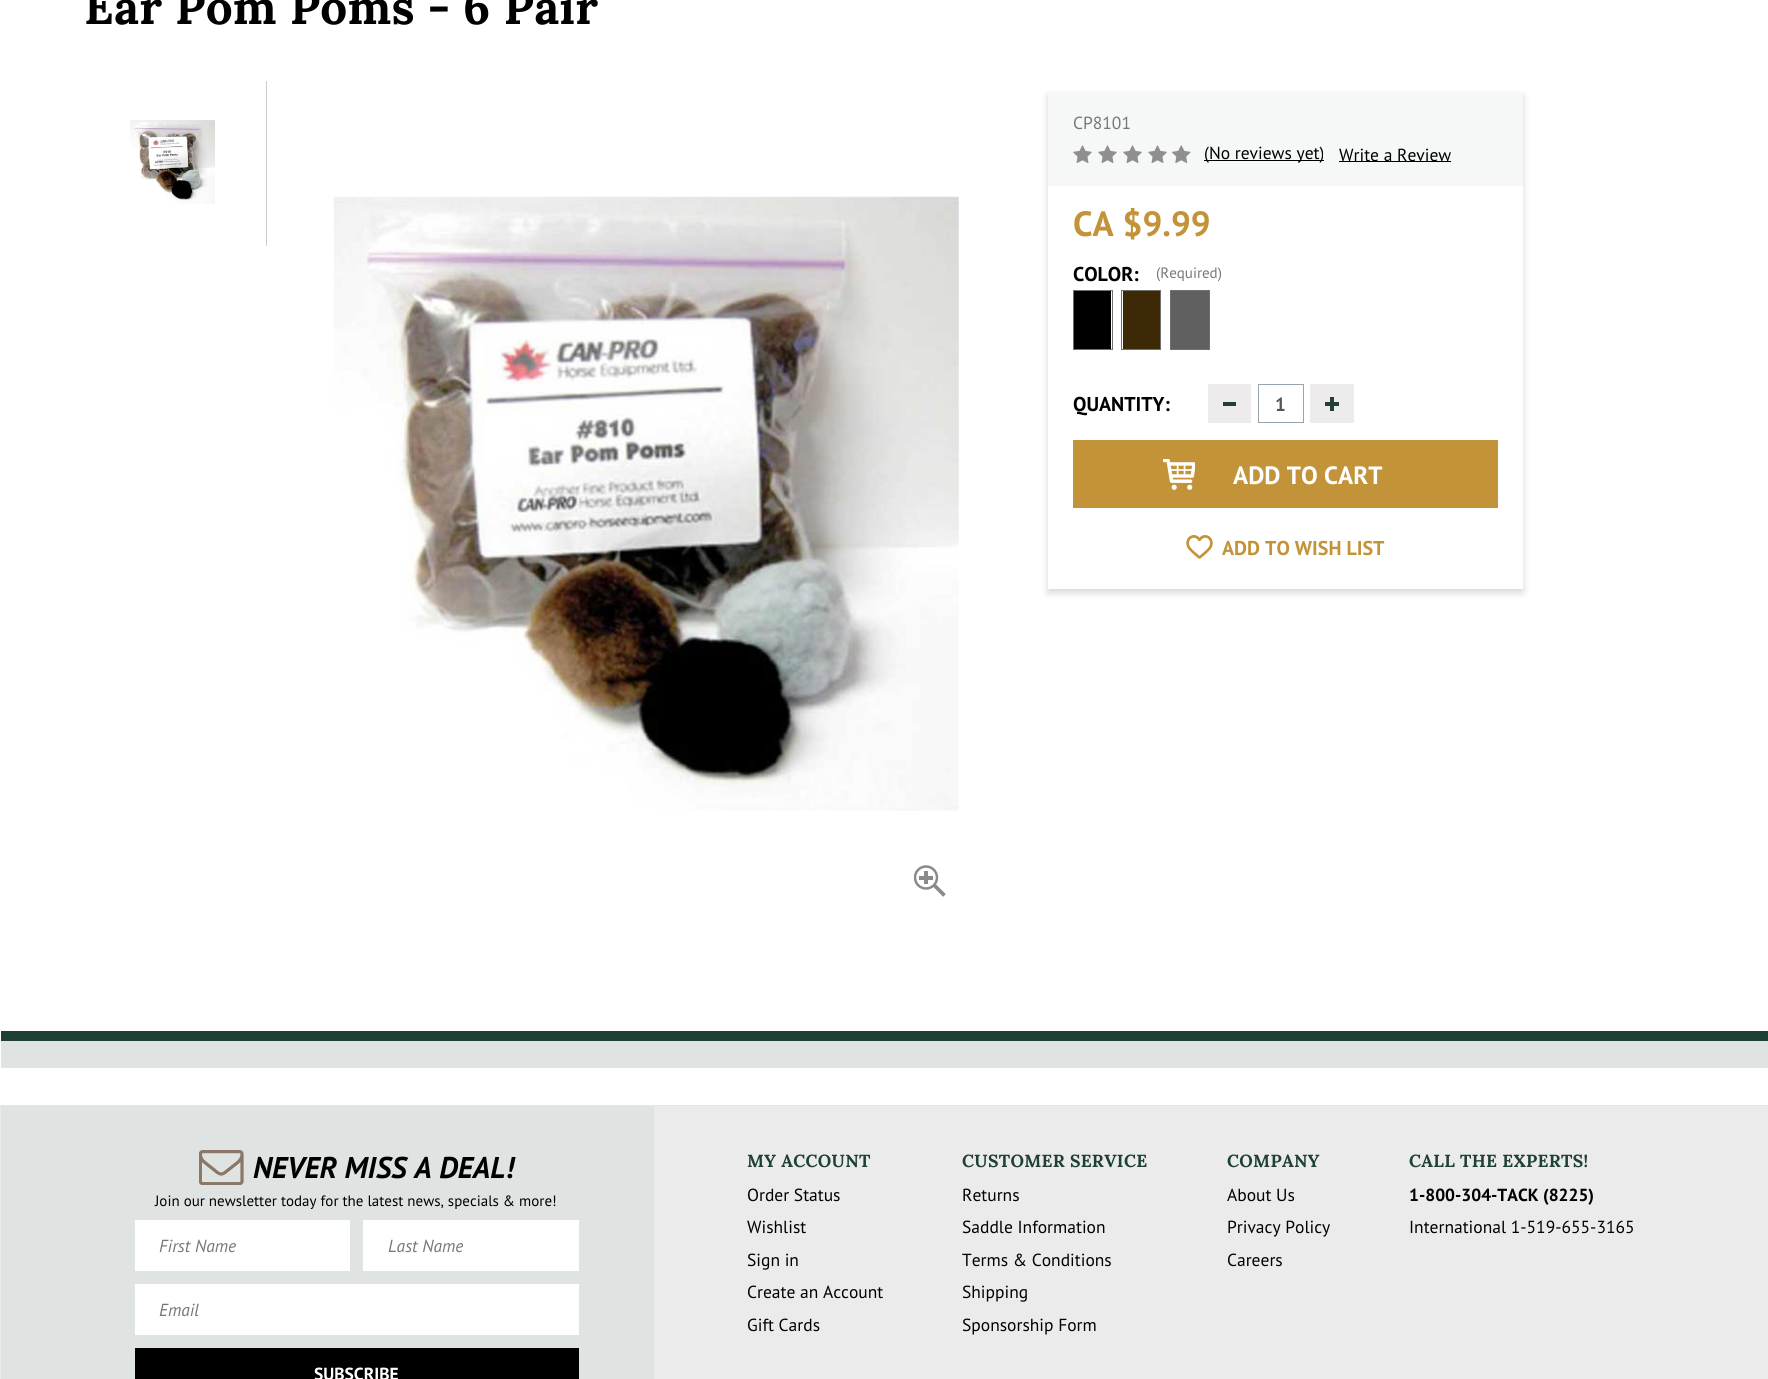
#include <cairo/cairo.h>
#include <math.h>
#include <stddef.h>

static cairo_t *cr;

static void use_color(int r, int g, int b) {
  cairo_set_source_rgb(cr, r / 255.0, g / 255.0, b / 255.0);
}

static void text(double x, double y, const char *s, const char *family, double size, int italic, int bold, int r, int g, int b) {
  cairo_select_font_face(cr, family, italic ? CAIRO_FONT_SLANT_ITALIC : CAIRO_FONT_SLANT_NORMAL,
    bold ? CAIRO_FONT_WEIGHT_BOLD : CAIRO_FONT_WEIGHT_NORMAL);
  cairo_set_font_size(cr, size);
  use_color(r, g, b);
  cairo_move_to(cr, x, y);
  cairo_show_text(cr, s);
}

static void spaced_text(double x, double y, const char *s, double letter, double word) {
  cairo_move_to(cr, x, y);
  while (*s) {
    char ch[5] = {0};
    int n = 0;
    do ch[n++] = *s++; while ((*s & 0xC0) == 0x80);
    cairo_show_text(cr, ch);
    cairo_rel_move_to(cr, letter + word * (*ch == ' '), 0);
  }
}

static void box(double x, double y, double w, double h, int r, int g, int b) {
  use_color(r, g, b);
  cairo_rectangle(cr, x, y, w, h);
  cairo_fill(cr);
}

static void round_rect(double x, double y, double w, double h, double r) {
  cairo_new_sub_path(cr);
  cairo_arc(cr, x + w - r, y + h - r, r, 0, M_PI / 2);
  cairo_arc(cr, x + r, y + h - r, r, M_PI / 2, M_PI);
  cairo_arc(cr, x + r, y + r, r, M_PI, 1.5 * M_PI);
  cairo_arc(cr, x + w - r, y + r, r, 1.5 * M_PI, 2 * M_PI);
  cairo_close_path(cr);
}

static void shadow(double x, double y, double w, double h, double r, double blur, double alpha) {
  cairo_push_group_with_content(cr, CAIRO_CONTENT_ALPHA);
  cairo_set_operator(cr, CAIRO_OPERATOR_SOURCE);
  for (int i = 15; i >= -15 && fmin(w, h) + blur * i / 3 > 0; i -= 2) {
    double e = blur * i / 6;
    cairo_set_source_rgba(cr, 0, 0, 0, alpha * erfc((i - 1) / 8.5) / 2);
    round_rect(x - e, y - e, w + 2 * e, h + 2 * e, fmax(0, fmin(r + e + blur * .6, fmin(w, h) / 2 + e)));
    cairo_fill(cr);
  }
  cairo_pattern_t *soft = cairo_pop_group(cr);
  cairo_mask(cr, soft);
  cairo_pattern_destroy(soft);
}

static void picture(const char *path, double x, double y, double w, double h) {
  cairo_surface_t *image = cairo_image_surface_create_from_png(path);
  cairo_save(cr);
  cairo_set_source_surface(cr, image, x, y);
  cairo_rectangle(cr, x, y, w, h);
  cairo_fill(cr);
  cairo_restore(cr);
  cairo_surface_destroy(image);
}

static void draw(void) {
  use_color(255, 255, 255);
  cairo_paint(cr);
  picture("img_01.png", 130, 120, 85, 84);
  box(266, 81, 1, 165, 204, 204, 204);
  picture("img_02.png", 333, 196, 626, 615);
  cairo_save(cr);
  cairo_rectangle(cr, 914, 865, 32, 31);
  cairo_clip(cr);
  cairo_arc(cr, 926, 877.5, 11, 0, 2 * M_PI);
  use_color(138, 138, 138);
  cairo_set_line_width(cr, 2.5);
  cairo_stroke(cr);
  cairo_restore(cr);
  box(924, 871, 4, 13, 138, 138, 138);
  box(919, 876, 14, 4, 138, 138, 138);
  cairo_new_path(cr);
  cairo_move_to(cr, 934.5, 885.5);
  cairo_line_to(cr, 944.5, 895.5);
  cairo_set_line_width(cr, 3.7);
  cairo_stroke(cr);
  cairo_save(cr);
  cairo_set_fill_rule(cr, CAIRO_FILL_RULE_EVEN_ODD);
  cairo_new_path(cr);
  cairo_move_to(cr, 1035, 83);
  cairo_line_to(cr, 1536, 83);
  cairo_line_to(cr, 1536, 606);
  cairo_line_to(cr, 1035, 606);
  cairo_close_path(cr);
  cairo_move_to(cr, 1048, 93);
  cairo_line_to(cr, 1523, 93);
  cairo_line_to(cr, 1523, 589);
  cairo_line_to(cr, 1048, 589);
  cairo_close_path(cr);
  cairo_clip(cr);
  use_color(0, 0, 0);
  shadow(1048, 96, 475, 497, 0, 4, 0.16);
  cairo_restore(cr);
  box(1048, 93, 475, 93, 246, 247, 247);
  picture("img_03.png", 1073, 145, 19, 18);
  picture("img_03.png", 1098, 145, 19, 18);
  picture("img_03.png", 1123, 145, 19, 18);
  picture("img_03.png", 1148, 145, 19, 18);
  picture("img_04.png", 1172, 145, 19, 18);
  box(1204, 160, 120, 1, 0, 0, 0);
  box(1339, 161, 112, 1, 0, 0, 0);
  cairo_rectangle(cr, 1073.5, 290.5, 39, 59);
  use_color(112, 112, 112);
  cairo_set_line_width(cr, 1);
  cairo_stroke(cr);
  box(1074, 291, 37, 58, 0, 0, 0);
  cairo_rectangle(cr, 1121.5, 290.5, 39, 59);
  use_color(112, 112, 112);
  cairo_stroke(cr);
  box(1123, 291, 37, 58, 61, 41, 5);
  cairo_rectangle(cr, 1170.5, 290.5, 39, 59);
  use_color(112, 112, 112);
  cairo_stroke(cr);
  box(1171, 291, 38, 58, 97, 96, 97);
  box(1208, 384, 43, 39, 237, 235, 235);
  box(1223, 402, 13, 4, 31, 64, 53);
  cairo_rectangle(cr, 1258.5, 384.5, 45, 38);
  use_color(153, 164, 174);
  cairo_stroke(cr);
  box(1310, 384, 44, 39, 237, 235, 235);
  box(1330, 397, 4, 14, 31, 64, 53);
  box(1325, 402, 14, 4, 31, 64, 53);
  box(1073, 440, 425, 68, 194, 147, 56);
  picture("img_05.png", 1163, 459, 32, 31);
  picture("img_06.png", 1186, 535, 27, 24);
  box(1, 1041, 1767, 27, 223, 227, 226);
  box(1, 1031, 1767, 10, 31, 64, 53);
  box(0, 1106, 1768, 273, 235, 235, 235);
  box(0, 1105, 1768, 1, 229, 229, 229);
  box(1, 1106, 653, 273, 223, 227, 226);
  picture("img_07.png", 199, 1150, 45, 35);
  box(135, 1220, 215, 51, 255, 255, 255);
  box(363, 1220, 216, 51, 255, 255, 255);
  box(135, 1284, 444, 51, 255, 255, 255);
  box(135, 1348, 444, 31, 0, 0, 0);
  cairo_select_font_face(cr, "Lora", CAIRO_FONT_SLANT_NORMAL, CAIRO_FONT_WEIGHT_BOLD);
  cairo_set_font_size(cr, 47.5);
  spaced_text(84, 24, "Ear Pom Poms - 6 Pair", 0.3, 0);
  text(1073, 129, "CP8101", "PT Sans", 17.5, 0, 0, 119, 119, 119);
  text(1204, 159, "(No reviews yet)", "PT Sans", 17.5, 0, 0, 0, 0, 0);
  text(1339, 161, "Write a Review", "PT Sans", 17.5, 0, 0, 0, 0, 0);
  text(1073, 236, "CA $9.99", "PT Sans", 35, 0, 1, 194, 147, 56);
  text(1073, 281, "COLOR:", "PT Sans", 20, 0, 1, 0, 0, 0);
  text(1156, 278, "(Required)", "PT Sans", 15, 0, 0, 119, 119, 119);
  text(1073, 411, "QUANTITY:", "PT Sans", 20, 0, 1, 0, 0, 0);
  text(1275, 411, "1", "PT Sans", 19, 0, 1, 87, 87, 87);
  text(1233, 484, "ADD TO CART", "PT Sans", 25, 0, 1, 255, 255, 255);
  text(1222, 555, "ADD TO WISH LIST", "PT Sans", 20, 0, 1, 194, 147, 56);
  text(253, 1178, "NEVER MISS A DEAL!", "PT Sans", 30, 1, 1, 0, 0, 0);
  text(155, 1206, "Join our newsletter today for the latest news, specials & more!", "PT Sans", 15, 0, 0, 0, 0, 0);
  text(159, 1252, "First Name", "PT Sans", 17.5, 1, 0, 119, 119, 119);
  text(388, 1252, "Last Name", "PT Sans", 17.5, 1, 0, 119, 119, 119);
  text(159, 1316, "Email", "PT Sans", 17.5, 1, 0, 119, 119, 119);
  text(314, 1380, "SUBSCRIBE", "PT Sans", 17.5, 0, 1, 255, 255, 255);
  cairo_select_font_face(cr, "Lora", CAIRO_FONT_SLANT_NORMAL, CAIRO_FONT_WEIGHT_BOLD);
  use_color(31, 64, 53);
  spaced_text(747, 1167, "MY ACCOUNT", 0.3, 0);
  text(747, 1201, "Order Status", "PT Sans", 17.5, 0, 0, 0, 0, 0);
  text(747, 1233, "Wishlist", "PT Sans", 17.5, 0, 0, 0, 0, 0);
  text(747, 1266, "Sign in", "PT Sans", 17.5, 0, 0, 0, 0, 0);
  text(747, 1298, "Create an Account", "PT Sans", 17.5, 0, 0, 0, 0, 0);
  text(747, 1331, "Gift Cards", "PT Sans", 17.5, 0, 0, 0, 0, 0);
  cairo_select_font_face(cr, "Lora", CAIRO_FONT_SLANT_NORMAL, CAIRO_FONT_WEIGHT_BOLD);
  use_color(31, 64, 53);
  spaced_text(962, 1167, "CUSTOMER SERVICE", 0.3, 0);
  text(962, 1201, "Returns", "PT Sans", 17.5, 0, 0, 0, 0, 0);
  text(962, 1233, "Saddle Information", "PT Sans", 17.5, 0, 0, 0, 0, 0);
  text(962, 1266, "Terms & Conditions", "PT Sans", 17.5, 0, 0, 0, 0, 0);
  text(962, 1298, "Shipping", "PT Sans", 17.5, 0, 0, 0, 0, 0);
  text(962, 1331, "Sponsorship Form", "PT Sans", 17.5, 0, 0, 0, 0, 0);
  cairo_select_font_face(cr, "Lora", CAIRO_FONT_SLANT_NORMAL, CAIRO_FONT_WEIGHT_BOLD);
  use_color(31, 64, 53);
  spaced_text(1227, 1167, "COMPANY", 0.3, 0);
  text(1227, 1201, "About Us", "PT Sans", 17.5, 0, 0, 0, 0, 0);
  text(1227, 1233, "Privacy Policy", "PT Sans", 17.5, 0, 0, 0, 0, 0);
  text(1227, 1266, "Careers", "PT Sans", 17.5, 0, 0, 0, 0, 0);
  cairo_select_font_face(cr, "Lora", CAIRO_FONT_SLANT_NORMAL, CAIRO_FONT_WEIGHT_BOLD);
  use_color(31, 64, 53);
  spaced_text(1409, 1167, "CALL THE EXPERTS!", 0.3, 0);
  text(1409, 1201, "1-800-304-TACK (8225)", "PT Sans", 17.5, 0, 1, 0, 0, 0);
  text(1409, 1233, "International 1-519-655-3165", "PT Sans", 17.5, 0, 0, 0, 0, 0);
}

int main(void) {
  cairo_surface_t *surface = cairo_image_surface_create(CAIRO_FORMAT_RGB24, 1768, 1379);
  cr = cairo_create(surface);
  cairo_font_options_t *options = cairo_font_options_create();
  cairo_font_options_set_hint_metrics(options, CAIRO_HINT_METRICS_OFF);
  cairo_font_options_set_hint_style(options, CAIRO_HINT_STYLE_NONE);
  cairo_set_font_options(cr, options);
  cairo_set_miter_limit(cr, 4);
  draw();
  cairo_surface_write_to_png(surface, "out.png");
  cairo_font_options_destroy(options);
  cairo_destroy(cr);
  cairo_surface_destroy(surface);
  return 0;
}
